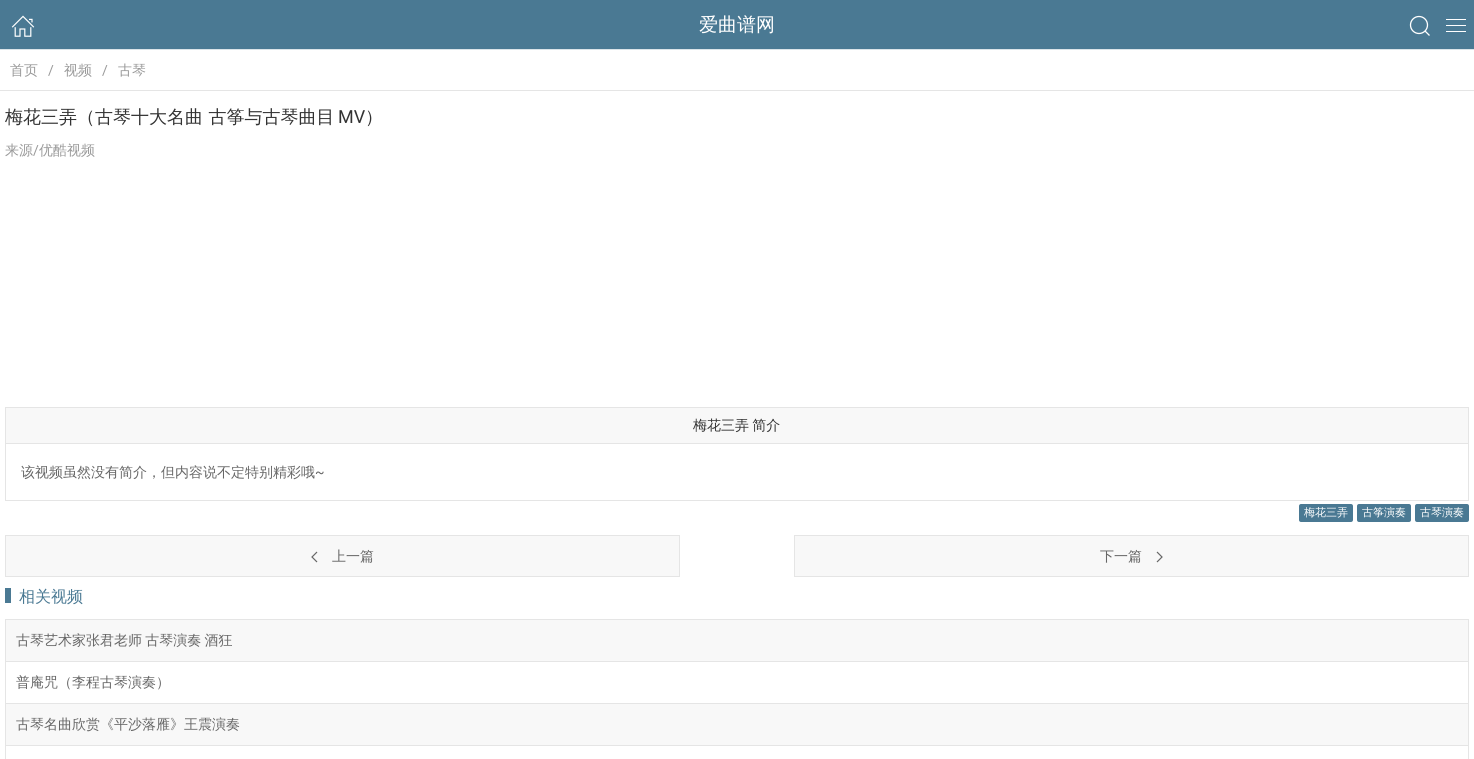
#include <cairo/cairo.h>
#include <math.h>
#include <stddef.h>

static cairo_t *cr;

static void use_color(int r, int g, int b) {
  cairo_set_source_rgb(cr, r / 255.0, g / 255.0, b / 255.0);
}

static void text(double x, double y, const char *s, const char *family, double size, int italic, int bold, int r, int g, int b) {
  cairo_select_font_face(cr, family, italic ? CAIRO_FONT_SLANT_ITALIC : CAIRO_FONT_SLANT_NORMAL,
    bold ? CAIRO_FONT_WEIGHT_BOLD : CAIRO_FONT_WEIGHT_NORMAL);
  cairo_set_font_size(cr, size);
  use_color(r, g, b);
  cairo_move_to(cr, x, y);
  cairo_show_text(cr, s);
}

static void spaced_text(double x, double y, const char *s, double letter, double word) {
  cairo_move_to(cr, x, y);
  while (*s) {
    char ch[5] = {0};
    int n = 0;
    do ch[n++] = *s++; while ((*s & 0xC0) == 0x80);
    cairo_show_text(cr, ch);
    cairo_rel_move_to(cr, letter + word * (*ch == ' '), 0);
  }
}

static void box(double x, double y, double w, double h, int r, int g, int b) {
  use_color(r, g, b);
  cairo_rectangle(cr, x, y, w, h);
  cairo_fill(cr);
}

static void round_rect(double x, double y, double w, double h, double r) {
  cairo_new_sub_path(cr);
  cairo_arc(cr, x + w - r, y + h - r, r, 0, M_PI / 2);
  cairo_arc(cr, x + r, y + h - r, r, M_PI / 2, M_PI);
  cairo_arc(cr, x + r, y + r, r, M_PI, 1.5 * M_PI);
  cairo_arc(cr, x + w - r, y + r, r, 1.5 * M_PI, 2 * M_PI);
  cairo_close_path(cr);
}

static void picture(const char *path, double x, double y, double w, double h) {
  cairo_surface_t *image = cairo_image_surface_create_from_png(path);
  cairo_save(cr);
  cairo_set_source_surface(cr, image, x, y);
  cairo_rectangle(cr, x, y, w, h);
  cairo_fill(cr);
  cairo_restore(cr);
  cairo_surface_destroy(image);
}

static void draw(void) {
  use_color(255, 255, 255);
  cairo_paint(cr);
  box(0, 0, 1474, 49, 74, 121, 147);
  box(0, 49, 1474, 1, 219, 228, 233);
  picture("img_01.png", 11, 15, 24, 22);
  cairo_arc(cr, 1419, 25, 8.5, 0, 2 * M_PI);
  use_color(255, 255, 255);
  cairo_set_line_width(cr, 1.3);
  cairo_stroke(cr);
  cairo_new_path(cr);
  cairo_move_to(cr, 1425, 31);
  cairo_line_to(cr, 1429.5, 35.5);
  cairo_close_path(cr);
  cairo_stroke(cr);
  box(1446, 19, 20, 1, 255, 255, 255);
  box(1446, 25, 20, 1, 255, 255, 255);
  box(1446, 31, 20, 1, 255, 255, 255);
  box(0, 90, 1474, 1, 229, 229, 229);
  cairo_rectangle(cr, 5.5, 407.5, 1463, 93);
  cairo_set_line_width(cr, 1);
  cairo_stroke(cr);
  box(6, 408, 1462, 35, 248, 248, 248);
  box(6, 443, 1462, 1, 229, 229, 229);
  use_color(74, 121, 147);
  round_rect(1299, 504, 54, 18, 2);
  cairo_fill(cr);
  round_rect(1357, 504, 54, 18, 2);
  cairo_fill(cr);
  round_rect(1415, 504, 54, 18, 2);
  cairo_fill(cr);
  use_color(248, 248, 248);
  cairo_rectangle(cr, 5.5, 535.5, 674, 41);
  cairo_fill_preserve(cr);
  use_color(229, 229, 229);
  cairo_stroke(cr);
  cairo_new_path(cr);
  cairo_move_to(cr, 317, 552);
  cairo_line_to(cr, 312, 557);
  cairo_line_to(cr, 317, 562);
  use_color(102, 102, 102);
  cairo_set_line_width(cr, 1.2);
  cairo_stroke(cr);
  use_color(248, 248, 248);
  cairo_rectangle(cr, 794.5, 535.5, 674, 41);
  cairo_fill_preserve(cr);
  use_color(229, 229, 229);
  cairo_set_line_width(cr, 1);
  cairo_stroke(cr);
  cairo_new_path(cr);
  cairo_move_to(cr, 1157, 552);
  cairo_line_to(cr, 1162, 557);
  cairo_line_to(cr, 1157, 562);
  use_color(102, 102, 102);
  cairo_set_line_width(cr, 1.2);
  cairo_stroke(cr);
  box(5, 588, 6, 15, 74, 121, 147);
  box(1468, 619, 1, 140, 229, 229, 229);
  box(5, 619, 1, 140, 229, 229, 229);
  box(6, 620, 1462, 41, 248, 248, 248);
  box(6, 619, 1462, 1, 229, 229, 229);
  box(6, 661, 1462, 1, 229, 229, 229);
  box(6, 704, 1462, 41, 248, 248, 248);
  box(6, 703, 1462, 1, 229, 229, 229);
  box(6, 745, 1462, 1, 229, 229, 229);
  text(699, 31, "爱曲谱网", "WenQuanYi Zen Hei Medium", 19, 0, 0, 255, 255, 255);
  text(10, 75, "首页", "WenQuanYi Zen Hei Medium", 14, 0, 0, 153, 153, 153);
  text(48, 75, "/", "Roboto", 14, 0, 0, 153, 153, 153);
  text(64, 75, "视频", "WenQuanYi Zen Hei Medium", 14, 0, 0, 153, 153, 153);
  text(102, 75, "/", "Roboto", 14, 0, 0, 153, 153, 153);
  text(118, 75, "古琴", "WenQuanYi Zen Hei Medium", 14, 0, 0, 153, 153, 153);
  text(5, 123, "梅花三弄（古琴十大名曲 古筝与古琴曲目", "WenQuanYi Zen Hei Medium", 18, 0, 0, 51, 51, 51);
  text(338, 123, "MV", "Roboto", 18, 0, 0, 51, 51, 51);
  text(365, 123, "）", "WenQuanYi Zen Hei Medium", 18, 0, 0, 51, 51, 51);
  text(5, 155, "来源", "WenQuanYi Zen Hei Medium", 14, 0, 0, 153, 153, 153);
  text(33, 155, "/", "Roboto", 14, 0, 0, 153, 153, 153);
  text(39, 155, "优酷视频", "WenQuanYi Zen Hei Medium", 14, 0, 0, 153, 153, 153);
  use_color(51, 51, 51);
  spaced_text(693, 430, "梅花三弄 简介", 0, -1);
  text(21, 477, "该视频虽然没有简介，但内容说不定特别精彩哦", "WenQuanYi Zen Hei Medium", 14, 0, 0, 102, 102, 102);
  text(315, 477, "~", "Roboto", 14, 0, 0, 102, 102, 102);
  text(1304, 516, "梅花三弄", "WenQuanYi Zen Hei Medium", 11, 0, 0, 255, 255, 255);
  text(1362, 516, "古筝演奏", "WenQuanYi Zen Hei Medium", 11, 0, 0, 255, 255, 255);
  text(1420, 516, "古琴演奏", "WenQuanYi Zen Hei Medium", 11, 0, 0, 255, 255, 255);
  text(332, 561, "上一篇", "WenQuanYi Zen Hei Medium", 14, 0, 0, 102, 102, 102);
  text(1100, 561, "下一篇", "WenQuanYi Zen Hei Medium", 14, 0, 0, 102, 102, 102);
  text(19, 602, "相关视频", "WenQuanYi Zen Hei Medium", 16, 0, 0, 74, 121, 147);
  cairo_set_font_size(cr, 14);
  use_color(102, 102, 102);
  spaced_text(16, 645, "古琴艺术家张君老师 古琴演奏 酒狂", 0, -1);
  text(16, 687, "普庵咒（李程古琴演奏）", "WenQuanYi Zen Hei Medium", 14, 0, 0, 102, 102, 102);
  text(16, 729, "古琴名曲欣赏《平沙落雁》王震演奏", "WenQuanYi Zen Hei Medium", 14, 0, 0, 102, 102, 102);
}

int main(void) {
  cairo_surface_t *surface = cairo_image_surface_create(CAIRO_FORMAT_RGB24, 1474, 759);
  cr = cairo_create(surface);
  cairo_font_options_t *options = cairo_font_options_create();
  cairo_font_options_set_hint_metrics(options, CAIRO_HINT_METRICS_OFF);
  cairo_font_options_set_hint_style(options, CAIRO_HINT_STYLE_NONE);
  cairo_set_font_options(cr, options);
  cairo_set_miter_limit(cr, 4);
  draw();
  cairo_surface_write_to_png(surface, "out.png");
  cairo_font_options_destroy(options);
  cairo_destroy(cr);
  cairo_surface_destroy(surface);
  return 0;
}
